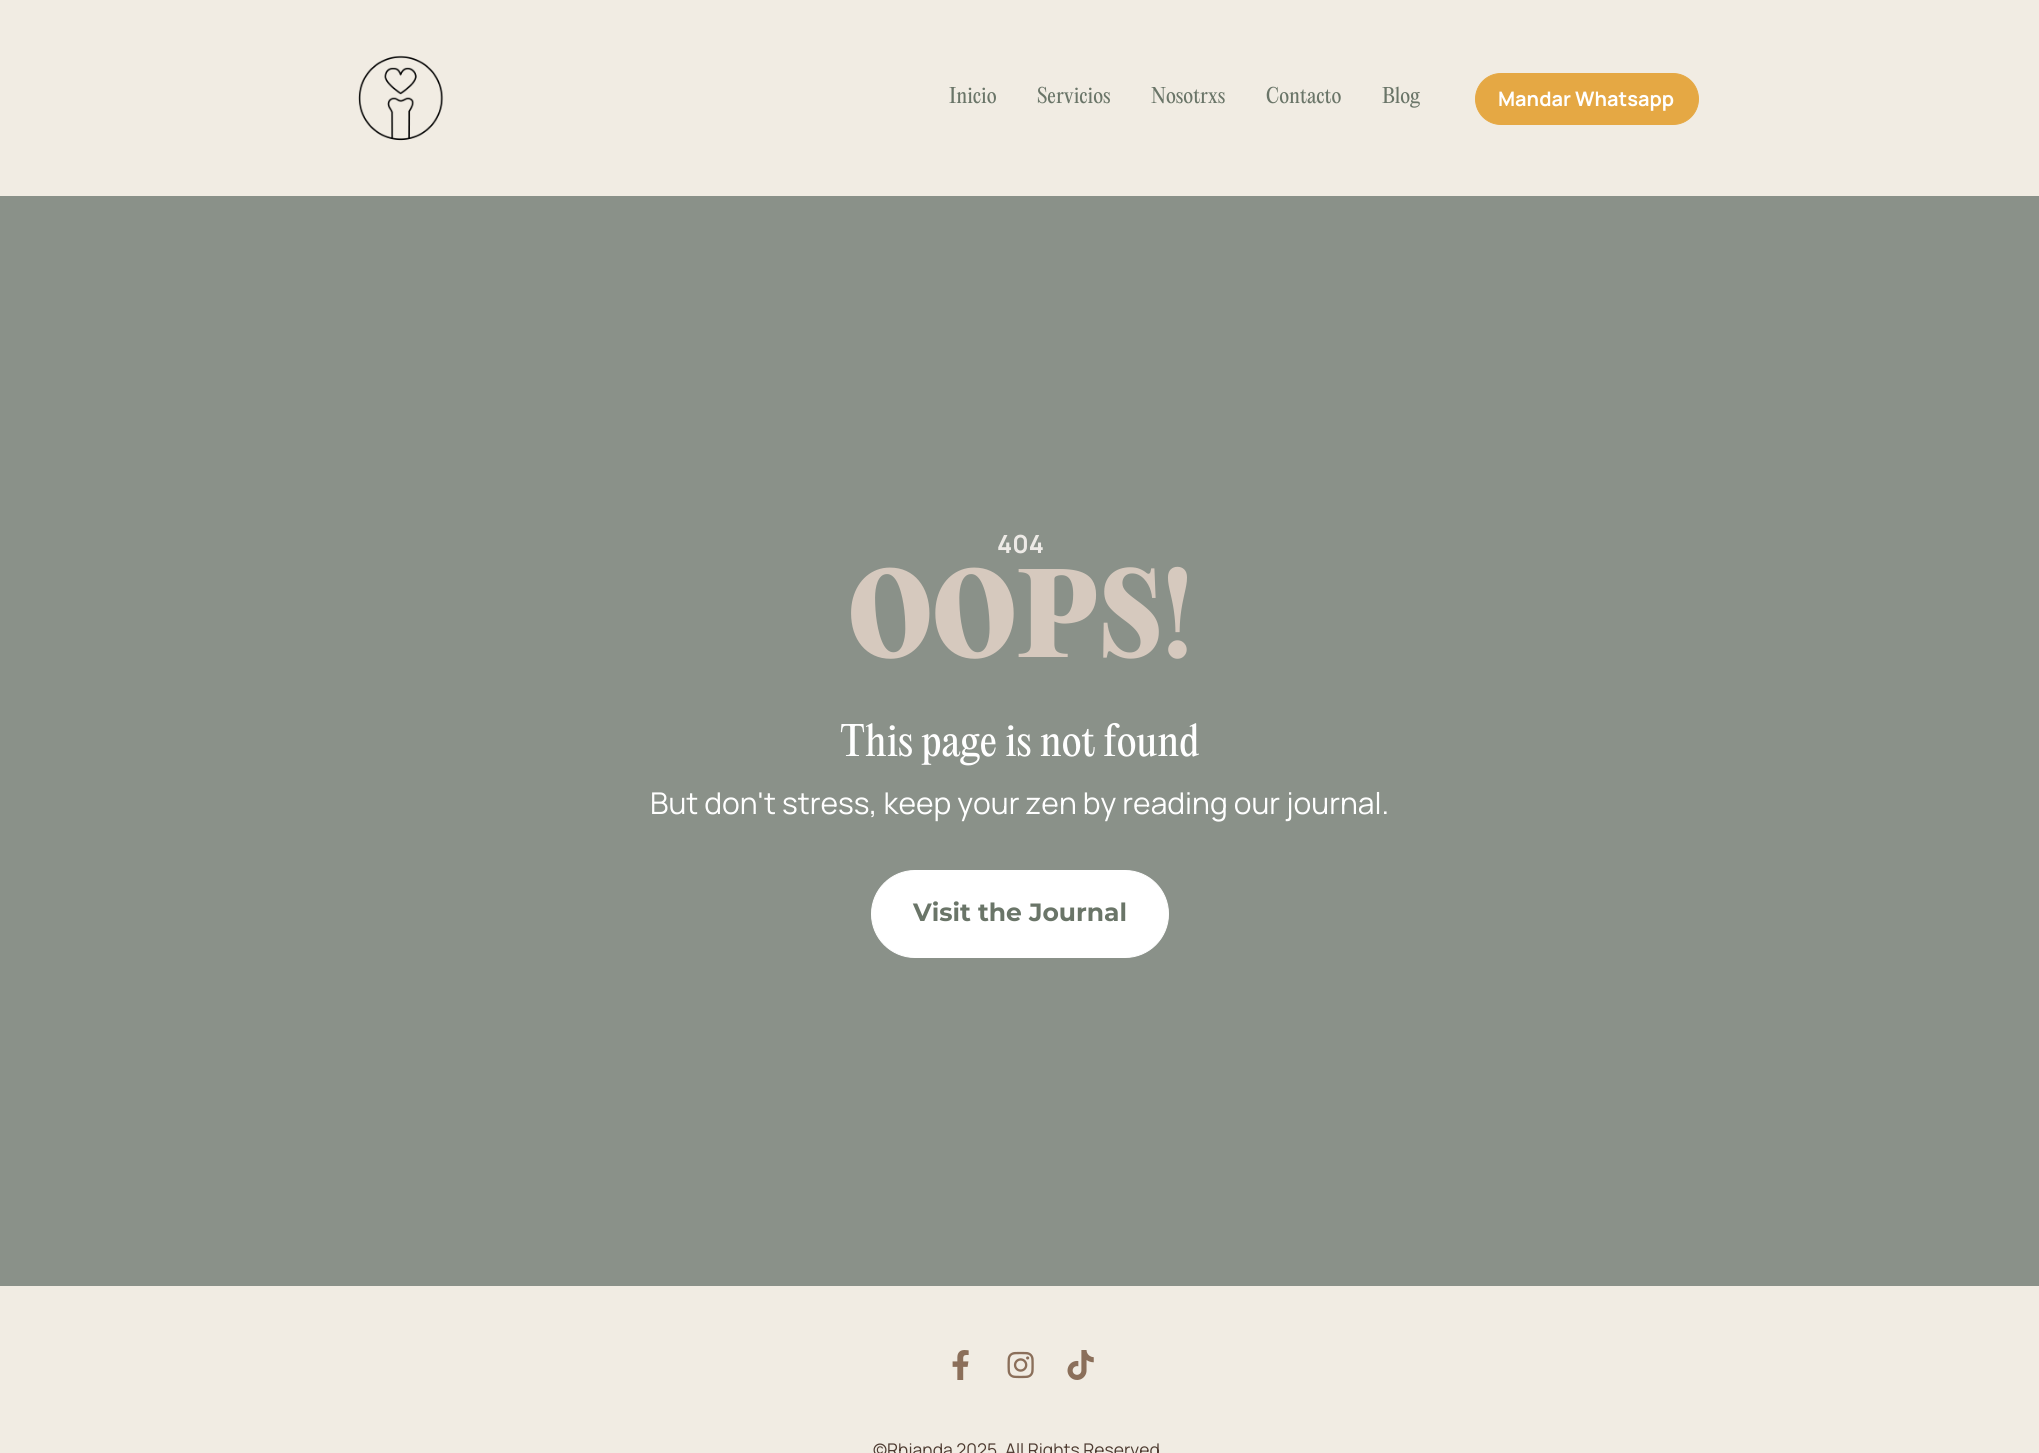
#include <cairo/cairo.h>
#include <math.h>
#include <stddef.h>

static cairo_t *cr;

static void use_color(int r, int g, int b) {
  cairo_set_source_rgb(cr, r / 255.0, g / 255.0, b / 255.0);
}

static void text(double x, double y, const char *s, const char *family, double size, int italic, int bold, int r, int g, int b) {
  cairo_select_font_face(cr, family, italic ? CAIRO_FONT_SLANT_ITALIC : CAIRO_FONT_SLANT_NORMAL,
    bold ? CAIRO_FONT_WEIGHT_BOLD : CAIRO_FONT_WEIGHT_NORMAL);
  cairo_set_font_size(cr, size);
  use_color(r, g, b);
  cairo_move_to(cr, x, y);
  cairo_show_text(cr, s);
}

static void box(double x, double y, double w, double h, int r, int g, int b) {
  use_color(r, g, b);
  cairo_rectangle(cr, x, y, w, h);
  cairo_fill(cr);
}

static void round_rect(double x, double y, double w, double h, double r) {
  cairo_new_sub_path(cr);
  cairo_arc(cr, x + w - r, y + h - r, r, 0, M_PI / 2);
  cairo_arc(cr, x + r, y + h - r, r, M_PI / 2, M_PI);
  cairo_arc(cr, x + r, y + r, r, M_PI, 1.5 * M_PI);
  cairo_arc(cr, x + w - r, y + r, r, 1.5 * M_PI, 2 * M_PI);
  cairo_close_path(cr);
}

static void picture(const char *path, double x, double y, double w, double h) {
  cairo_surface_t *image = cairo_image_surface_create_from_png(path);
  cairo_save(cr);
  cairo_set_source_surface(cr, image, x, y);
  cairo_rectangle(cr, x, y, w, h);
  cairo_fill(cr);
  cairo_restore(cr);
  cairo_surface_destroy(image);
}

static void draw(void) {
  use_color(241, 236, 227);
  cairo_paint(cr);
  picture("img_01.png", 358, 55, 86, 86);
  use_color(229, 168, 68);
  round_rect(1475.5, 73.5, 223, 51, 25.5);
  cairo_fill_preserve(cr);
  cairo_set_line_width(cr, 1);
  cairo_stroke(cr);
  box(0, 196, 2039, 1090, 138, 145, 137);
  use_color(255, 255, 255);
  round_rect(871.5, 870.5, 297, 87, 43.5);
  cairo_fill_preserve(cr);
  cairo_stroke(cr);
  picture("img_02.png", 952, 1350, 17, 30);
  picture("img_03.png", 1007, 1351, 27, 28);
  picture("img_04.png", 1067, 1350, 27, 30);
  text(949, 103, "Inicio", "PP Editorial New", 20, 0, 0, 106, 117, 104);
  text(1037, 103, "Servicios", "PP Editorial New", 20, 0, 0, 106, 117, 104);
  text(1151, 103, "Nosotrxs", "PP Editorial New", 20, 0, 0, 106, 117, 104);
  text(1266, 103, "Contacto", "PP Editorial New", 20, 0, 0, 106, 117, 104);
  text(1382, 103, "Blog", "PP Editorial New", 20, 0, 0, 106, 117, 104);
  text(1498, 106, "Mandar Whatsapp", "Manrope", 20, 0, 1, 255, 255, 255);
  text(997, 553, "404", "Manrope", 25, 0, 1, 237, 234, 230);
  text(848, 657, "OOPS!", "PP Editorial New ExtraBold", 110, 0, 0, 214, 201, 190);
  text(840, 756, "This page is not found", "PP Editorial New", 40, 0, 0, 255, 255, 255);
  text(650, 814, "But don't stress, keep your zen by reading our journal.", "Manrope", 30, 0, 0, 255, 255, 255);
  text(913, 921, "Visit the Journal", "Montserrat", 25, 0, 1, 106, 117, 104);
  text(873, 1456, "©Rhianda 2025. All Rights Reserved", "Manrope", 17.5, 0, 0, 78, 59, 49);
}

int main(void) {
  cairo_surface_t *surface = cairo_image_surface_create(CAIRO_FORMAT_RGB24, 2039, 1453);
  cr = cairo_create(surface);
  cairo_font_options_t *options = cairo_font_options_create();
  cairo_font_options_set_hint_metrics(options, CAIRO_HINT_METRICS_OFF);
  cairo_font_options_set_hint_style(options, CAIRO_HINT_STYLE_NONE);
  cairo_set_font_options(cr, options);
  cairo_set_miter_limit(cr, 4);
  draw();
  cairo_surface_write_to_png(surface, "out.png");
  cairo_font_options_destroy(options);
  cairo_destroy(cr);
  cairo_surface_destroy(surface);
  return 0;
}
